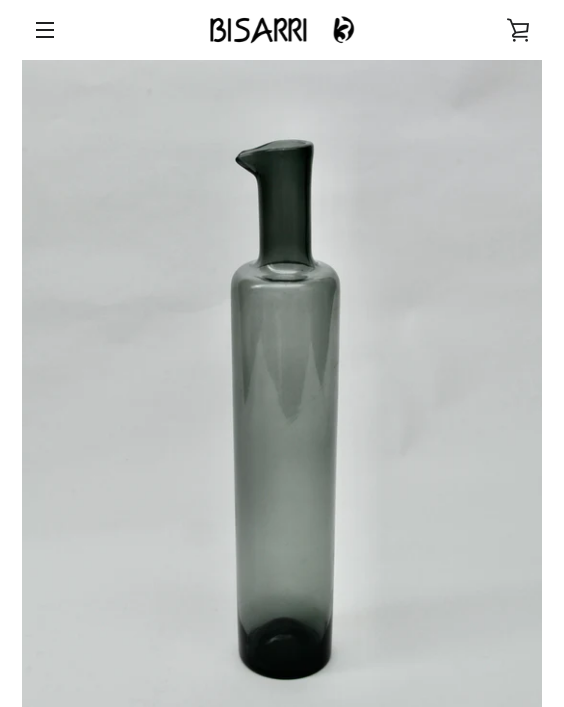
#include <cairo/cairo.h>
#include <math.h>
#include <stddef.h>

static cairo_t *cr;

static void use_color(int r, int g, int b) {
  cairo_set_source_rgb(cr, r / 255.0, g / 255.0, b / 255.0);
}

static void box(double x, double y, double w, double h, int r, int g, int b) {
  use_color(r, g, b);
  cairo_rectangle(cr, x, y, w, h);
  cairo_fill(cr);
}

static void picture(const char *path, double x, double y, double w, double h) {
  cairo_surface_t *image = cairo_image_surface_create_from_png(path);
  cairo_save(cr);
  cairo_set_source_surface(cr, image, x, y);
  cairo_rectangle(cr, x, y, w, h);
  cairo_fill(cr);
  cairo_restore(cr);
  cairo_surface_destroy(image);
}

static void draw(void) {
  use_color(255, 255, 255);
  cairo_paint(cr);
  box(36, 22, 18, 2, 31, 32, 33);
  box(36, 29, 18, 2, 31, 32, 33);
  box(36, 36, 18, 2, 31, 32, 33);
  picture("img_01.png", 210, 16, 145, 28);
  picture("img_02.png", 507, 18, 22, 24);
  picture("img_03.png", 22, 60, 520, 647);
}

int main(void) {
  cairo_surface_t *surface = cairo_image_surface_create(CAIRO_FORMAT_RGB24, 564, 707);
  cr = cairo_create(surface);
  cairo_font_options_t *options = cairo_font_options_create();
  cairo_font_options_set_hint_metrics(options, CAIRO_HINT_METRICS_OFF);
  cairo_font_options_set_hint_style(options, CAIRO_HINT_STYLE_NONE);
  cairo_set_font_options(cr, options);
  cairo_set_miter_limit(cr, 4);
  draw();
  cairo_surface_write_to_png(surface, "out.png");
  cairo_font_options_destroy(options);
  cairo_destroy(cr);
  cairo_surface_destroy(surface);
  return 0;
}
